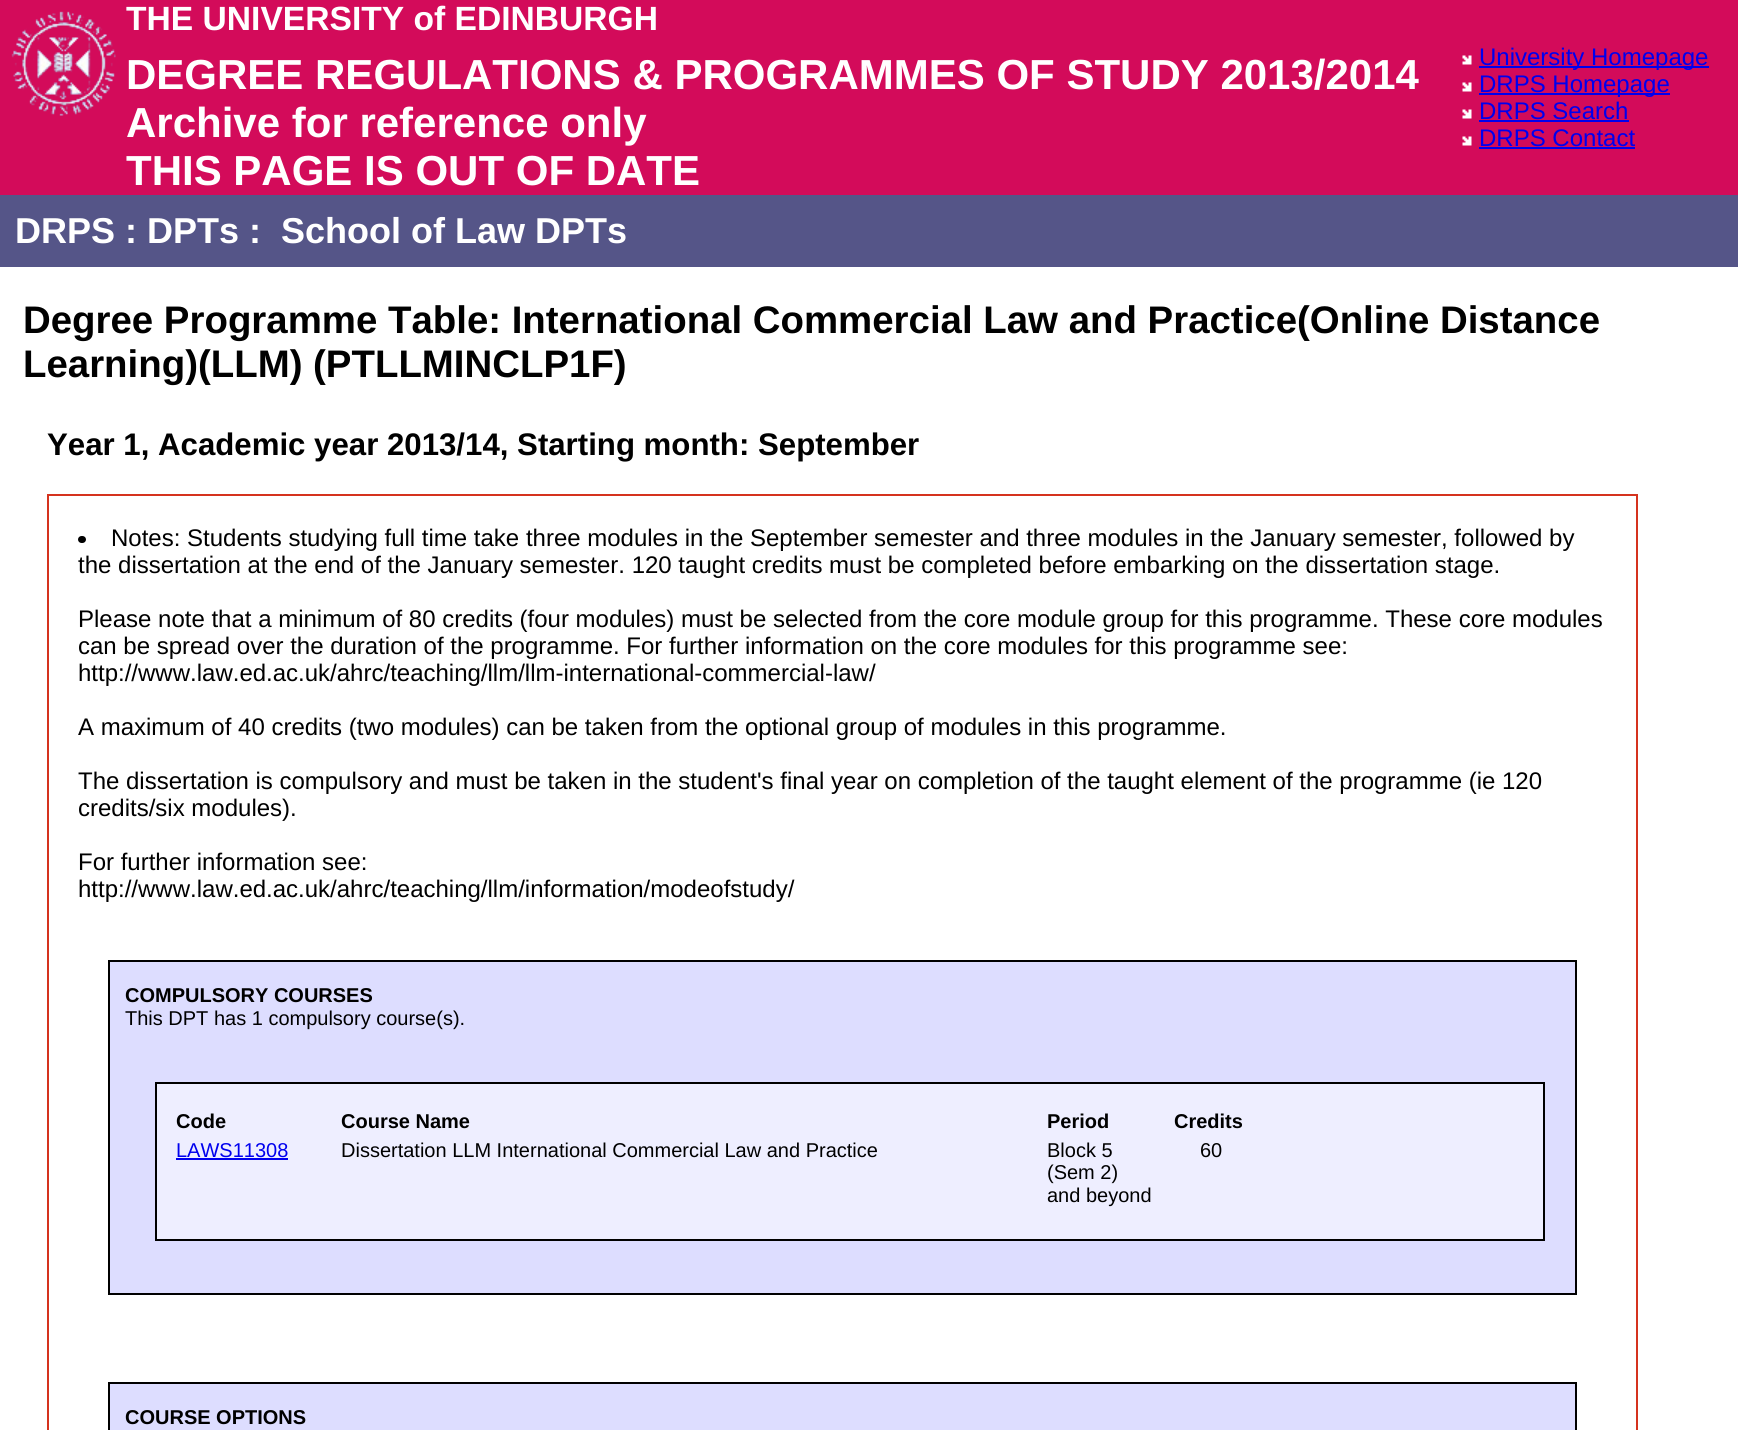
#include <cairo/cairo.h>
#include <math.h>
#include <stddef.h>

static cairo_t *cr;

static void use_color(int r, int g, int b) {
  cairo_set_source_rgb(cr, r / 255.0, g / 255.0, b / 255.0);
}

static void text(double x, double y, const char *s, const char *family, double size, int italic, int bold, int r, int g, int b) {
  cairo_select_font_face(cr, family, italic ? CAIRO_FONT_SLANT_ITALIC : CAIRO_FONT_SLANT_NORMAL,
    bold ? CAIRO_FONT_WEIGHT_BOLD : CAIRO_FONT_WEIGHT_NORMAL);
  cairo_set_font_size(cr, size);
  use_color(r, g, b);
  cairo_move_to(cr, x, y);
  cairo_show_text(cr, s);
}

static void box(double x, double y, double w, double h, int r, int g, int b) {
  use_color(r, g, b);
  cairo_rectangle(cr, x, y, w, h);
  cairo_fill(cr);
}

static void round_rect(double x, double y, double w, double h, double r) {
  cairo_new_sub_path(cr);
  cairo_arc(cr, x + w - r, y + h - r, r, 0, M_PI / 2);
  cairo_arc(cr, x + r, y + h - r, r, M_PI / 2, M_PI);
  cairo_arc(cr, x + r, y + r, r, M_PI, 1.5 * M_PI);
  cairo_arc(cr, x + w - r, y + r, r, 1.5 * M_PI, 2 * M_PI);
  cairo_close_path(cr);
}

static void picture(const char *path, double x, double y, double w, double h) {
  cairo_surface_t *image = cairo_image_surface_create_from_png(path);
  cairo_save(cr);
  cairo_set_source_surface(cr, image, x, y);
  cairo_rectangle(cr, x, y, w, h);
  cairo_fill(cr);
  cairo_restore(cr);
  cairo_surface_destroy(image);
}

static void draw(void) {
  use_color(255, 255, 255);
  cairo_paint(cr);
  box(0, 0, 1738, 195, 211, 11, 90);
  picture("img_01.png", 11, 11, 105, 105);
  picture("img_02.png", 1462, 55, 10, 10);
  box(1479, 66, 230, 2, 0, 0, 238);
  picture("img_02.png", 1462, 82, 10, 10);
  box(1479, 93, 191, 2, 0, 0, 238);
  picture("img_02.png", 1462, 109, 10, 10);
  box(1479, 120, 150, 2, 0, 0, 238);
  picture("img_02.png", 1462, 136, 10, 10);
  box(1479, 147, 156, 2, 0, 0, 238);
  box(0, 195, 1738, 72, 85, 85, 136);
  cairo_rectangle(cr, 48, 495, 1589, 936);
  use_color(213, 51, 30);
  cairo_stroke(cr);
  use_color(0, 0, 0);
  round_rect(78, 536, 8, 7, 3.5);
  cairo_fill(cr);
  use_color(221, 221, 255);
  cairo_rectangle(cr, 109, 961, 1467, 333);
  cairo_fill_preserve(cr);
  use_color(0, 0, 0);
  cairo_stroke(cr);
  use_color(238, 238, 255);
  cairo_rectangle(cr, 156, 1083, 1388, 157);
  cairo_fill_preserve(cr);
  use_color(0, 0, 0);
  cairo_stroke(cr);
  box(176, 1158, 112, 2, 0, 0, 238);
  use_color(221, 221, 255);
  cairo_rectangle(cr, 109, 1383, 1467, 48);
  cairo_fill_preserve(cr);
  use_color(0, 0, 0);
  cairo_stroke(cr);
  text(126, 30, "THE UNIVERSITY of EDINBURGH", "Liberation Sans", 33.6, 0, 1, 255, 255, 255);
  text(126, 89, "DEGREE REGULATIONS & PROGRAMMES OF STUDY 2013/2014", "Liberation Sans", 42, 0, 1, 255, 255, 255);
  text(126, 137, "Archive for reference only", "Liberation Sans", 42, 0, 1, 255, 255, 255);
  text(126, 185, "THIS PAGE IS OUT OF DATE", "Liberation Sans", 42, 0, 1, 255, 255, 255);
  text(1479, 65, "University Homepage", "Liberation Sans", 24, 0, 0, 0, 0, 238);
  text(1479, 92, "DRPS Homepage", "Liberation Sans", 24, 0, 0, 0, 0, 238);
  text(1479, 119, "DRPS Search", "Liberation Sans", 24, 0, 0, 0, 0, 238);
  text(1479, 146, "DRPS Contact", "Liberation Sans", 24, 0, 0, 0, 0, 238);
  text(15, 243, "DRPS : DPTs :", "Liberation Sans", 36, 0, 1, 255, 255, 255);
  text(281, 243, "School of Law DPTs", "Liberation Sans", 36, 0, 1, 255, 255, 255);
  text(23, 333, "Degree Programme Table: International Commercial Law and Practice(Online Distance", "Liberation Sans", 38.4, 0, 1, 0, 0, 0);
  text(23, 377, "Learning)(LLM) (PTLLMINCLP1F)", "Liberation Sans", 38.4, 0, 1, 0, 0, 0);
  text(47, 455, "Year 1, Academic year 2013/14, Starting month: September", "Liberation Sans", 31.2, 0, 1, 0, 0, 0);
  text(111, 546, "Notes: Students studying full time take three modules in the September semester and three modules in the January semester, followed by", "Liberation Sans", 24, 0, 0, 0, 0, 0);
  text(78, 573, "the dissertation at the end of the January semester. 120 taught credits must be completed before embarking on the dissertation stage.", "Liberation Sans", 24, 0, 0, 0, 0, 0);
  text(78, 627, "Please note that a minimum of 80 credits (four modules) must be selected from the core module group for this programme. These core modules", "Liberation Sans", 24, 0, 0, 0, 0, 0);
  text(78, 654, "can be spread over the duration of the programme. For further information on the core modules for this programme see:", "Liberation Sans", 24, 0, 0, 0, 0, 0);
  text(78, 681, "http://www.law.ed.ac.uk/ahrc/teaching/llm/llm-international-commercial-law/", "Liberation Sans", 24, 0, 0, 0, 0, 0);
  text(78, 735, "A maximum of 40 credits (two modules) can be taken from the optional group of modules in this programme.", "Liberation Sans", 24, 0, 0, 0, 0, 0);
  text(78, 789, "The dissertation is compulsory and must be taken in the student's final year on completion of the taught element of the programme (ie 120", "Liberation Sans", 24, 0, 0, 0, 0, 0);
  text(78, 816, "credits/six modules).", "Liberation Sans", 24, 0, 0, 0, 0, 0);
  text(78, 870, "For further information see:", "Liberation Sans", 24, 0, 0, 0, 0, 0);
  text(78, 897, "http://www.law.ed.ac.uk/ahrc/teaching/llm/information/modeofstudy/", "Liberation Sans", 24, 0, 0, 0, 0, 0);
  text(125, 1002, "COMPULSORY COURSES", "Liberation Sans", 20, 0, 1, 0, 0, 0);
  text(125, 1025, "This DPT has 1 compulsory course(s).", "Liberation Sans", 20, 0, 0, 0, 0, 0);
  text(176, 1128, "Code", "Liberation Sans", 20, 0, 1, 0, 0, 0);
  text(341, 1128, "Course Name", "Liberation Sans", 20, 0, 1, 0, 0, 0);
  text(1047, 1128, "Period", "Liberation Sans", 20, 0, 1, 0, 0, 0);
  text(1174, 1128, "Credits", "Liberation Sans", 20, 0, 1, 0, 0, 0);
  text(176, 1157, "LAWS11308", "Liberation Sans", 20, 0, 0, 0, 0, 238);
  text(341, 1157, "Dissertation LLM International Commercial Law and Practice", "Liberation Sans", 20, 0, 0, 0, 0, 0);
  text(1047, 1157, "Block 5", "Liberation Sans", 20, 0, 0, 0, 0, 0);
  text(1047, 1179, "(Sem 2)", "Liberation Sans", 20, 0, 0, 0, 0, 0);
  text(1047, 1202, "and beyond", "Liberation Sans", 20, 0, 0, 0, 0, 0);
  text(1200, 1157, "60", "Liberation Sans", 20, 0, 0, 0, 0, 0);
  text(125, 1424, "COURSE OPTIONS", "Liberation Sans", 20, 0, 1, 0, 0, 0);
}

int main(void) {
  cairo_surface_t *surface = cairo_image_surface_create(CAIRO_FORMAT_RGB24, 1738, 1430);
  cr = cairo_create(surface);
  cairo_font_options_t *options = cairo_font_options_create();
  cairo_font_options_set_hint_metrics(options, CAIRO_HINT_METRICS_OFF);
  cairo_font_options_set_hint_style(options, CAIRO_HINT_STYLE_NONE);
  cairo_set_font_options(cr, options);
  cairo_set_miter_limit(cr, 4);
  draw();
  cairo_surface_write_to_png(surface, "out.png");
  cairo_font_options_destroy(options);
  cairo_destroy(cr);
  cairo_surface_destroy(surface);
  return 0;
}
